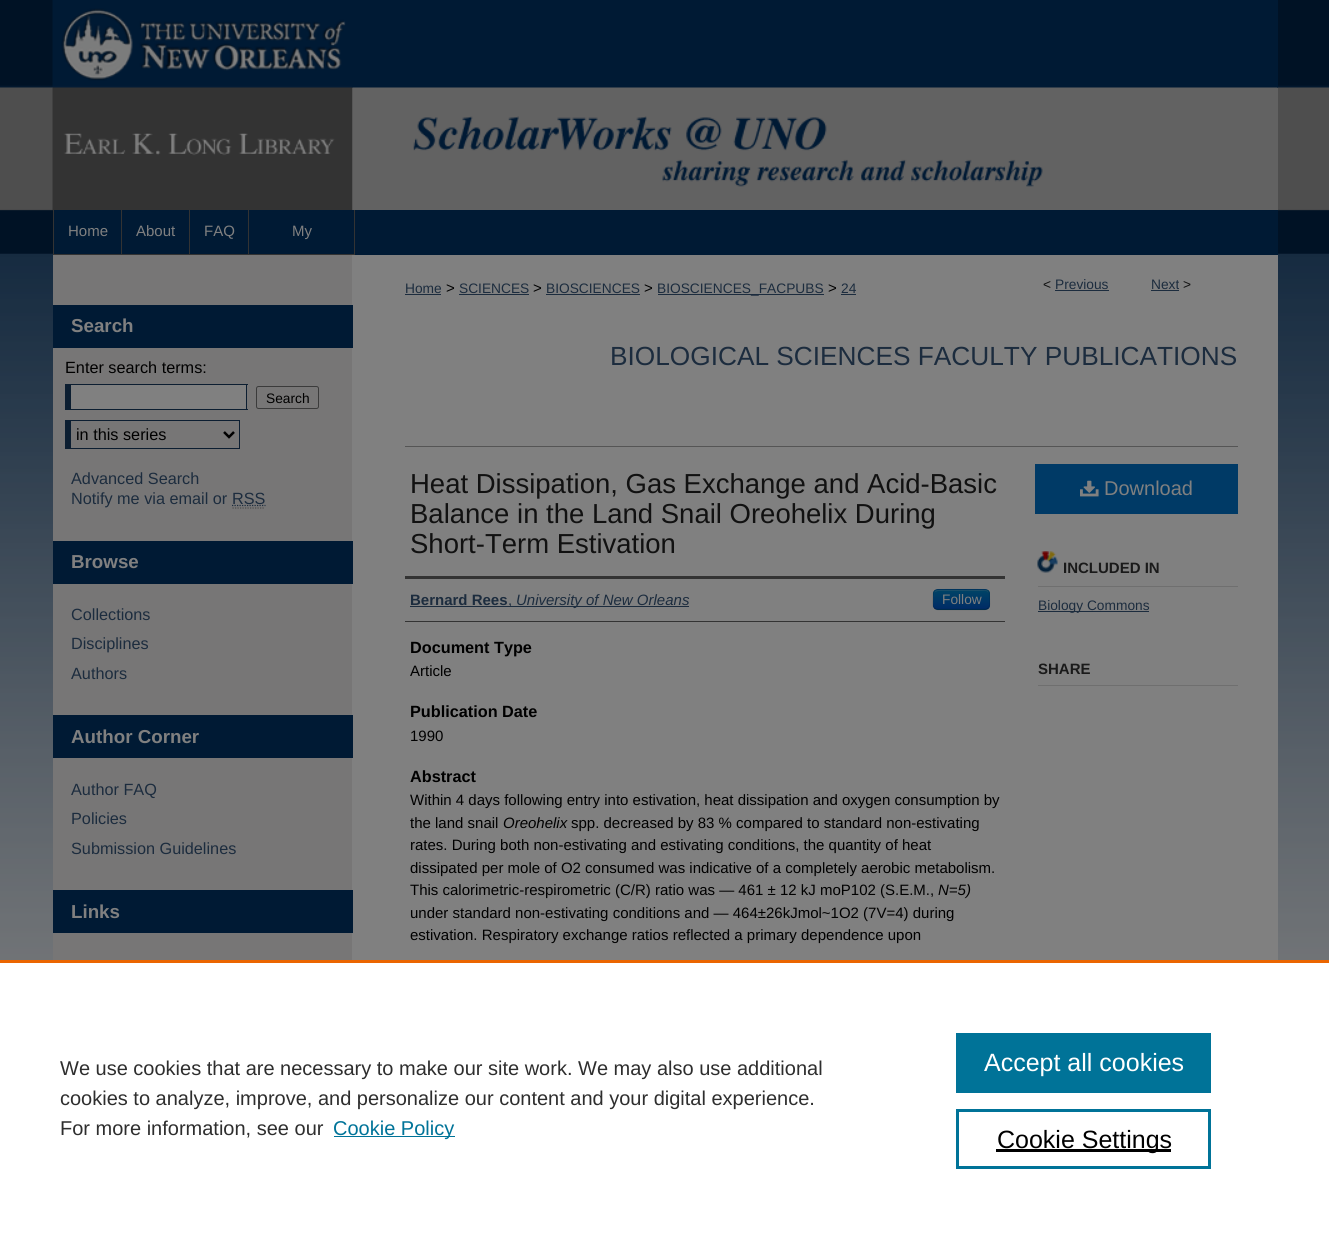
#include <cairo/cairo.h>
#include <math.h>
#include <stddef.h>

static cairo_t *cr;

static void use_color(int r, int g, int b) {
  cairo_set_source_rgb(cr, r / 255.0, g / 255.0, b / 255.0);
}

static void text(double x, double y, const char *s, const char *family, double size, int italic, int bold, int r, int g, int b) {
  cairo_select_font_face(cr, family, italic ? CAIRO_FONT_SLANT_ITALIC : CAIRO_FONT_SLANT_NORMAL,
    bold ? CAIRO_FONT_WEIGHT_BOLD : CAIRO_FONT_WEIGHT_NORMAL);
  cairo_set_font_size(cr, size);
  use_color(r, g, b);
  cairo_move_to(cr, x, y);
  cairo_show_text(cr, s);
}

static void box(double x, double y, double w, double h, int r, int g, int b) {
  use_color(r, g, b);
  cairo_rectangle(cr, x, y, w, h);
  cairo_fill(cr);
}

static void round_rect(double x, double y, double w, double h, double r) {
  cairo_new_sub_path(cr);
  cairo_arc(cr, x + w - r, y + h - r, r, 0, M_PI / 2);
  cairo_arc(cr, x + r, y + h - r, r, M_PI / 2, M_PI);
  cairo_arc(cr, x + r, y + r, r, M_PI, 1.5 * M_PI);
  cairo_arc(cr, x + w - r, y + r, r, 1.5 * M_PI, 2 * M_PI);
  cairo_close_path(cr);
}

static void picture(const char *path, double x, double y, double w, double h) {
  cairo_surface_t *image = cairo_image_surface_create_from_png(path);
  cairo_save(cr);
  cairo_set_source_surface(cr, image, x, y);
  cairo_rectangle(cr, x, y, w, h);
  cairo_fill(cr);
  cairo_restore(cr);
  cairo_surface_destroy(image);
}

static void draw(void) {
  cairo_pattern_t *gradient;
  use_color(255, 255, 255);
  cairo_paint(cr);
  picture("img_01.png", 0, 0, 1329, 960);
  box(352, 88, 926, 122, 98, 98, 98);
  box(53, 0, 1225, 88, 0, 26, 52);
  picture("img_02.png", 52, 0, 300, 88);
  picture("img_03.png", 52, 87, 301, 123);
  picture("img_04.png", 352, 87, 926, 123);
  box(54, 210, 1224, 45, 0, 26, 52);
  box(53, 210, 1, 45, 51, 51, 51);
  box(121, 210, 1, 45, 51, 51, 51);
  box(54, 254, 69, 1, 51, 51, 51);
  box(189, 210, 1, 45, 51, 51, 51);
  box(123, 254, 67, 1, 51, 51, 51);
  box(248, 210, 1, 45, 51, 51, 51);
  box(190, 254, 59, 1, 51, 51, 51);
  box(354, 210, 1, 45, 51, 51, 51);
  box(249, 254, 106, 1, 51, 51, 51);
  box(53, 255, 299, 705, 119, 118, 118);
  box(352, 255, 926, 705, 128, 128, 128);
  box(53, 305, 300, 43, 0, 26, 52);
  box(71, 385, 175, 24, 128, 128, 128);
  box(65, 384, 183, 1, 12, 30, 49);
  box(246, 384, 1, 26, 12, 30, 49);
  box(65, 409, 183, 1, 12, 30, 49);
  box(65, 384, 6, 26, 12, 30, 49);
  round_rect(256.5, 386.5, 62, 22, 2);
  use_color(59, 59, 59);
  cairo_set_line_width(cr, 1);
  cairo_stroke(cr);
  box(65, 420, 175, 1, 12, 30, 49);
  box(239, 420, 1, 29, 12, 30, 49);
  box(65, 448, 175, 1, 12, 30, 49);
  box(65, 420, 6, 29, 12, 30, 49);
  cairo_new_path(cr);
  cairo_move_to(cr, 224, 432);
  cairo_line_to(cr, 229, 437);
  cairo_line_to(cr, 234, 432);
  use_color(0, 0, 0);
  cairo_set_line_width(cr, 2.5);
  cairo_stroke(cr);
  cairo_new_path(cr);
  cairo_move_to(cr, 232.5, 508);
  cairo_line_to(cr, 265, 508);
  use_color(77, 77, 77);
  cairo_set_line_width(cr, 1.2);
  cairo_set_dash(cr, (double[]){1.25, 1.25}, 2, 0);
  cairo_stroke(cr);
  cairo_new_path(cr);
  cairo_move_to(cr, 232, 505.5);
  cairo_line_to(cr, 265.5, 505.5);
  use_color(28, 44, 62);
  cairo_stroke(cr);
  box(53, 541, 300, 43, 0, 26, 52);
  box(53, 715, 300, 43, 0, 26, 52);
  box(53, 890, 300, 43, 0, 26, 52);
  box(405, 294, 36, 1, 28, 44, 62);
  box(459, 294, 70, 1, 28, 44, 62);
  box(546, 294, 94, 1, 28, 44, 62);
  box(658, 294, 166, 1, 28, 44, 62);
  box(841, 294, 15, 1, 28, 44, 62);
  box(1055, 290, 54, 1, 28, 44, 62);
  box(1151, 290, 28, 1, 28, 44, 62);
  box(405, 446, 833, 1, 85, 85, 85);
  box(405, 576, 600, 3, 51, 51, 51);
  box(405, 621, 600, 1, 51, 51, 51);
  box(410, 606, 279, 1, 28, 44, 62);
  use_color(0, 58, 102);
  round_rect(933, 589, 57, 21, 5);
  cairo_fill(cr);
  cairo_save(cr);
  round_rect(933, 589, 57, 21, 5);
  cairo_clip(cr);
  gradient = cairo_pattern_create_linear(961, 590, 961, 609);
  cairo_pattern_add_color_stop_rgba(gradient, 0, 0, 0.267, 0.4, 1);
  cairo_pattern_add_color_stop_rgba(gradient, 1, 0, 0.169, 0.4, 1);
  cairo_set_source(cr, gradient);
  cairo_pattern_destroy(gradient);
  cairo_rectangle(cr, 933, 590, 57, 19);
  cairo_fill(cr);
  cairo_restore(cr);
  cairo_set_source_rgba(cr, 0.502, 0.502, 0.502, 0.2);
  cairo_new_path(cr);
  cairo_move_to(cr, 938, 591);
  cairo_line_to(cr, 982, 591);
  cairo_curve_to(cr, 989, 590, 989, 593, 989, 599);
  cairo_line_to(cr, 989, 606);
  cairo_line_to(cr, 989, 598);
  cairo_curve_to(cr, 989, 588, 987, 590, 977, 590);
  cairo_line_to(cr, 946, 590);
  cairo_curve_to(cr, 936, 590, 934, 588, 934, 598);
  cairo_line_to(cr, 934, 607);
  cairo_curve_to(cr, 934, 604, 933, 594, 935, 592);
  cairo_close_path(cr);
  cairo_fill(cr);
  cairo_new_path(cr);
  cairo_move_to(cr, 988, 608);
  cairo_curve_to(cr, 987.5, 609, 986, 609.5, 985, 609.5);
  cairo_line_to(cr, 937.5, 609.5);
  cairo_curve_to(cr, 936.5, 609.5, 935, 609, 934.5, 608);
  cairo_set_source_rgba(cr, 0, 0, 0, 0.25);
  cairo_set_dash(cr, NULL, 0, 0);
  cairo_stroke(cr);
  cairo_new_path(cr);
  cairo_move_to(cr, 934.5, 608);
  cairo_curve_to(cr, 932, 606, 933, 602, 933, 599.5);
  cairo_curve_to(cr, 933, 588.5, 934, 589.5, 945.5, 589.5);
  cairo_line_to(cr, 977, 589.5);
  cairo_curve_to(cr, 988.5, 589.5, 989.5, 588.5, 989.5, 599.5);
  cairo_curve_to(cr, 989.5, 602, 990.5, 606, 988, 608);
  cairo_set_source_rgba(cr, 0, 0, 0, 0.1);
  cairo_stroke(cr);
  box(1035, 464, 203, 50, 0, 58, 102);
  picture("img_05.png", 1080, 480, 19, 17);
  picture("img_06.png", 1037, 551, 21, 22);
  box(1038, 586, 200, 1, 111, 111, 111);
  box(1038, 611, 111, 1, 28, 44, 62);
  box(1038, 685, 200, 1, 111, 111, 111);
  box(0, 960, 1329, 3, 235, 101, 0);
  box(334, 1136, 121, 1, 0, 115, 152);
  box(956, 1033, 255, 60, 0, 115, 152);
  cairo_rectangle(cr, 957.5, 1110.5, 252, 57);
  cairo_set_line_width(cr, 3);
  cairo_stroke(cr);
  box(996, 1149, 175, 3, 0, 0, 0);
  text(68, 236, "Home", "Liberation Sans", 15, 0, 0, 128, 128, 128);
  text(136, 236, "About", "Liberation Sans", 15, 0, 0, 128, 128, 128);
  text(204, 236, "FAQ", "Liberation Sans", 15, 0, 0, 128, 128, 128);
  text(292, 236, "My", "Liberation Sans", 15, 0, 0, 128, 128, 128);
  text(71, 332, "Search", "Liberation Sans", 18.75, 0, 1, 128, 128, 128);
  text(65, 373, "Enter search terms:", "Liberation Sans", 16.25, 0, 0, 0, 0, 0);
  text(266, 403, "Search", "Liberation Sans", 13.75, 0, 0, 0, 0, 0);
  text(76, 440, "in this series", "Liberation Sans", 16.25, 0, 0, 0, 0, 0);
  text(71, 484, "Advanced Search", "Liberation Sans", 16.25, 0, 0, 28, 44, 62);
  text(71, 504, "Notify me via email or", "Liberation Sans", 16.25, 0, 0, 28, 44, 62);
  text(232, 504, "RSS", "Liberation Sans", 16.25, 0, 0, 28, 44, 62);
  text(71, 568, "Browse", "Liberation Sans", 18.75, 0, 1, 128, 128, 128);
  text(71, 620, "Collections", "Liberation Sans", 16.25, 0, 0, 28, 44, 62);
  text(71, 649, "Disciplines", "Liberation Sans", 16.25, 0, 0, 28, 44, 62);
  text(71, 679, "Authors", "Liberation Sans", 16.25, 0, 0, 28, 44, 62);
  text(71, 743, "Author Corner", "Liberation Sans", 18.75, 0, 1, 128, 128, 128);
  text(71, 795, "Author FAQ", "Liberation Sans", 16.25, 0, 0, 28, 44, 62);
  text(71, 824, "Policies", "Liberation Sans", 16.25, 0, 0, 28, 44, 62);
  text(71, 854, "Submission Guidelines", "Liberation Sans", 16.25, 0, 0, 28, 44, 62);
  text(71, 918, "Links", "Liberation Sans", 18.75, 0, 1, 128, 128, 128);
  text(405, 293, "Home", "Liberation Sans", 13.75, 0, 0, 28, 44, 62);
  text(446, 293, ">", "Liberation Sans", 15, 0, 0, 0, 0, 0);
  text(459, 293, "SCIENCES", "Liberation Sans", 13.75, 0, 0, 28, 44, 62);
  text(533, 293, ">", "Liberation Sans", 15, 0, 0, 0, 0, 0);
  text(546, 293, "BIOSCIENCES", "Liberation Sans", 13.75, 0, 0, 28, 44, 62);
  text(644, 293, ">", "Liberation Sans", 15, 0, 0, 0, 0, 0);
  text(657, 293, "BIOSCIENCES_FACPUBS", "Liberation Sans", 13.75, 0, 0, 28, 44, 62);
  text(828, 293, ">", "Liberation Sans", 15, 0, 0, 0, 0, 0);
  text(841, 293, "24", "Liberation Sans", 13.75, 0, 0, 28, 44, 62);
  text(1043, 289, "<", "Liberation Sans", 13.75, 0, 0, 17, 17, 17);
  text(1055, 289, "Previous", "Liberation Sans", 13.75, 0, 0, 28, 44, 62);
  text(1151, 289, "Next", "Liberation Sans", 13.75, 0, 0, 28, 44, 62);
  text(1183, 289, ">", "Liberation Sans", 13.75, 0, 0, 17, 17, 17);
  text(610, 365, "BIOLOGICAL SCIENCES FACULTY PUBLICATIONS", "Liberation Sans", 26.25, 0, 0, 28, 44, 62);
  text(410, 493, "Heat Dissipation, Gas Exchange and Acid-Basic", "Liberation Sans", 27.5, 0, 0, 17, 17, 17);
  text(410, 523, "Balance in the Land Snail Oreohelix During", "Liberation Sans", 27.5, 0, 0, 17, 17, 17);
  text(410, 553, "Short-Term Estivation", "Liberation Sans", 27.5, 0, 0, 17, 17, 17);
  text(410, 605, "Bernard Rees", "Liberation Sans", 15, 0, 1, 28, 44, 62);
  text(508, 605, ",", "Liberation Sans", 15, 0, 0, 28, 44, 62);
  text(516, 605, "University of New Orleans", "Liberation Sans", 15, 1, 0, 28, 44, 62);
  text(942, 604, "Follow", "Liberation Sans", 13.75, 0, 0, 128, 128, 128);
  text(410, 653, "Document Type", "Liberation Sans", 16.25, 0, 1, 0, 0, 0);
  text(410, 676, "Article", "Liberation Sans", 15, 0, 0, 0, 0, 0);
  text(410, 717, "Publication Date", "Liberation Sans", 16.25, 0, 1, 0, 0, 0);
  text(410, 741, "1990", "Liberation Sans", 15, 0, 0, 0, 0, 0);
  text(410, 782, "Abstract", "Liberation Sans", 16.25, 0, 1, 0, 0, 0);
  text(410, 805, "Within 4 days following entry into estivation, heat dissipation and oxygen consumption by", "Liberation Sans", 15, 0, 0, 0, 0, 0);
  text(410, 828, "the land snail", "Liberation Sans", 15, 0, 0, 0, 0, 0);
  text(503, 828, "Oreohelix", "Liberation Sans", 15, 1, 0, 0, 0, 0);
  text(571, 828, "spp. decreased by 83 % compared to standard non-estivating", "Liberation Sans", 15, 0, 0, 0, 0, 0);
  text(410, 850, "rates. During both non-estivating and estivating conditions, the quantity of heat", "Liberation Sans", 15, 0, 0, 0, 0, 0);
  text(410, 873, "dissipated per mole of O2 consumed was indicative of a completely aerobic metabolism.", "Liberation Sans", 15, 0, 0, 0, 0, 0);
  text(410, 895, "This calorimetric-respirometric (C/R) ratio was — 461 ± 12 kJ moP102 (S.E.M.,", "Liberation Sans", 15, 0, 0, 0, 0, 0);
  text(938, 895, "N=5)", "Liberation Sans", 15, 1, 0, 0, 0, 0);
  text(410, 918, "under standard non-estivating conditions and — 464±26kJmol~1O2 (7V=4) during", "Liberation Sans", 15, 0, 0, 0, 0, 0);
  text(410, 940, "estivation. Respiratory exchange ratios reflected a primary dependence upon", "Liberation Sans", 15, 0, 0, 0, 0, 0);
  text(1104, 495, "Download", "Liberation Sans", 20, 0, 0, 128, 128, 128);
  text(1063, 573, "INCLUDED IN", "Liberation Sans", 15, 0, 1, 26, 26, 26);
  text(1038, 610, "Biology Commons", "Liberation Sans", 13.75, 0, 0, 28, 44, 62);
  text(1038, 674, "SHARE", "Liberation Sans", 15, 0, 1, 26, 26, 26);
  text(60, 1075, "We use cookies that are necessary to make our site work. We may also use additional", "Liberation Sans", 20, 0, 0, 46, 46, 46);
  text(60, 1105, "cookies to analyze, improve, and personalize our content and your digital experience.", "Liberation Sans", 20, 0, 0, 46, 46, 46);
  text(60, 1135, "For more information, see our", "Liberation Sans", 20, 0, 0, 46, 46, 46);
  text(333, 1135, "Cookie Policy", "Liberation Sans", 20, 0, 0, 0, 115, 152);
  text(984, 1071, "Accept all cookies", "Liberation Sans", 25, 0, 0, 255, 255, 255);
  text(997, 1148, "Cookie Settings", "Liberation Sans", 25, 0, 0, 0, 0, 0);
}

int main(void) {
  cairo_surface_t *surface = cairo_image_surface_create(CAIRO_FORMAT_RGB24, 1329, 1235);
  cr = cairo_create(surface);
  cairo_font_options_t *options = cairo_font_options_create();
  cairo_font_options_set_hint_metrics(options, CAIRO_HINT_METRICS_OFF);
  cairo_font_options_set_hint_style(options, CAIRO_HINT_STYLE_NONE);
  cairo_set_font_options(cr, options);
  cairo_set_miter_limit(cr, 4);
  draw();
  cairo_surface_write_to_png(surface, "out.png");
  cairo_font_options_destroy(options);
  cairo_destroy(cr);
  cairo_surface_destroy(surface);
  return 0;
}
